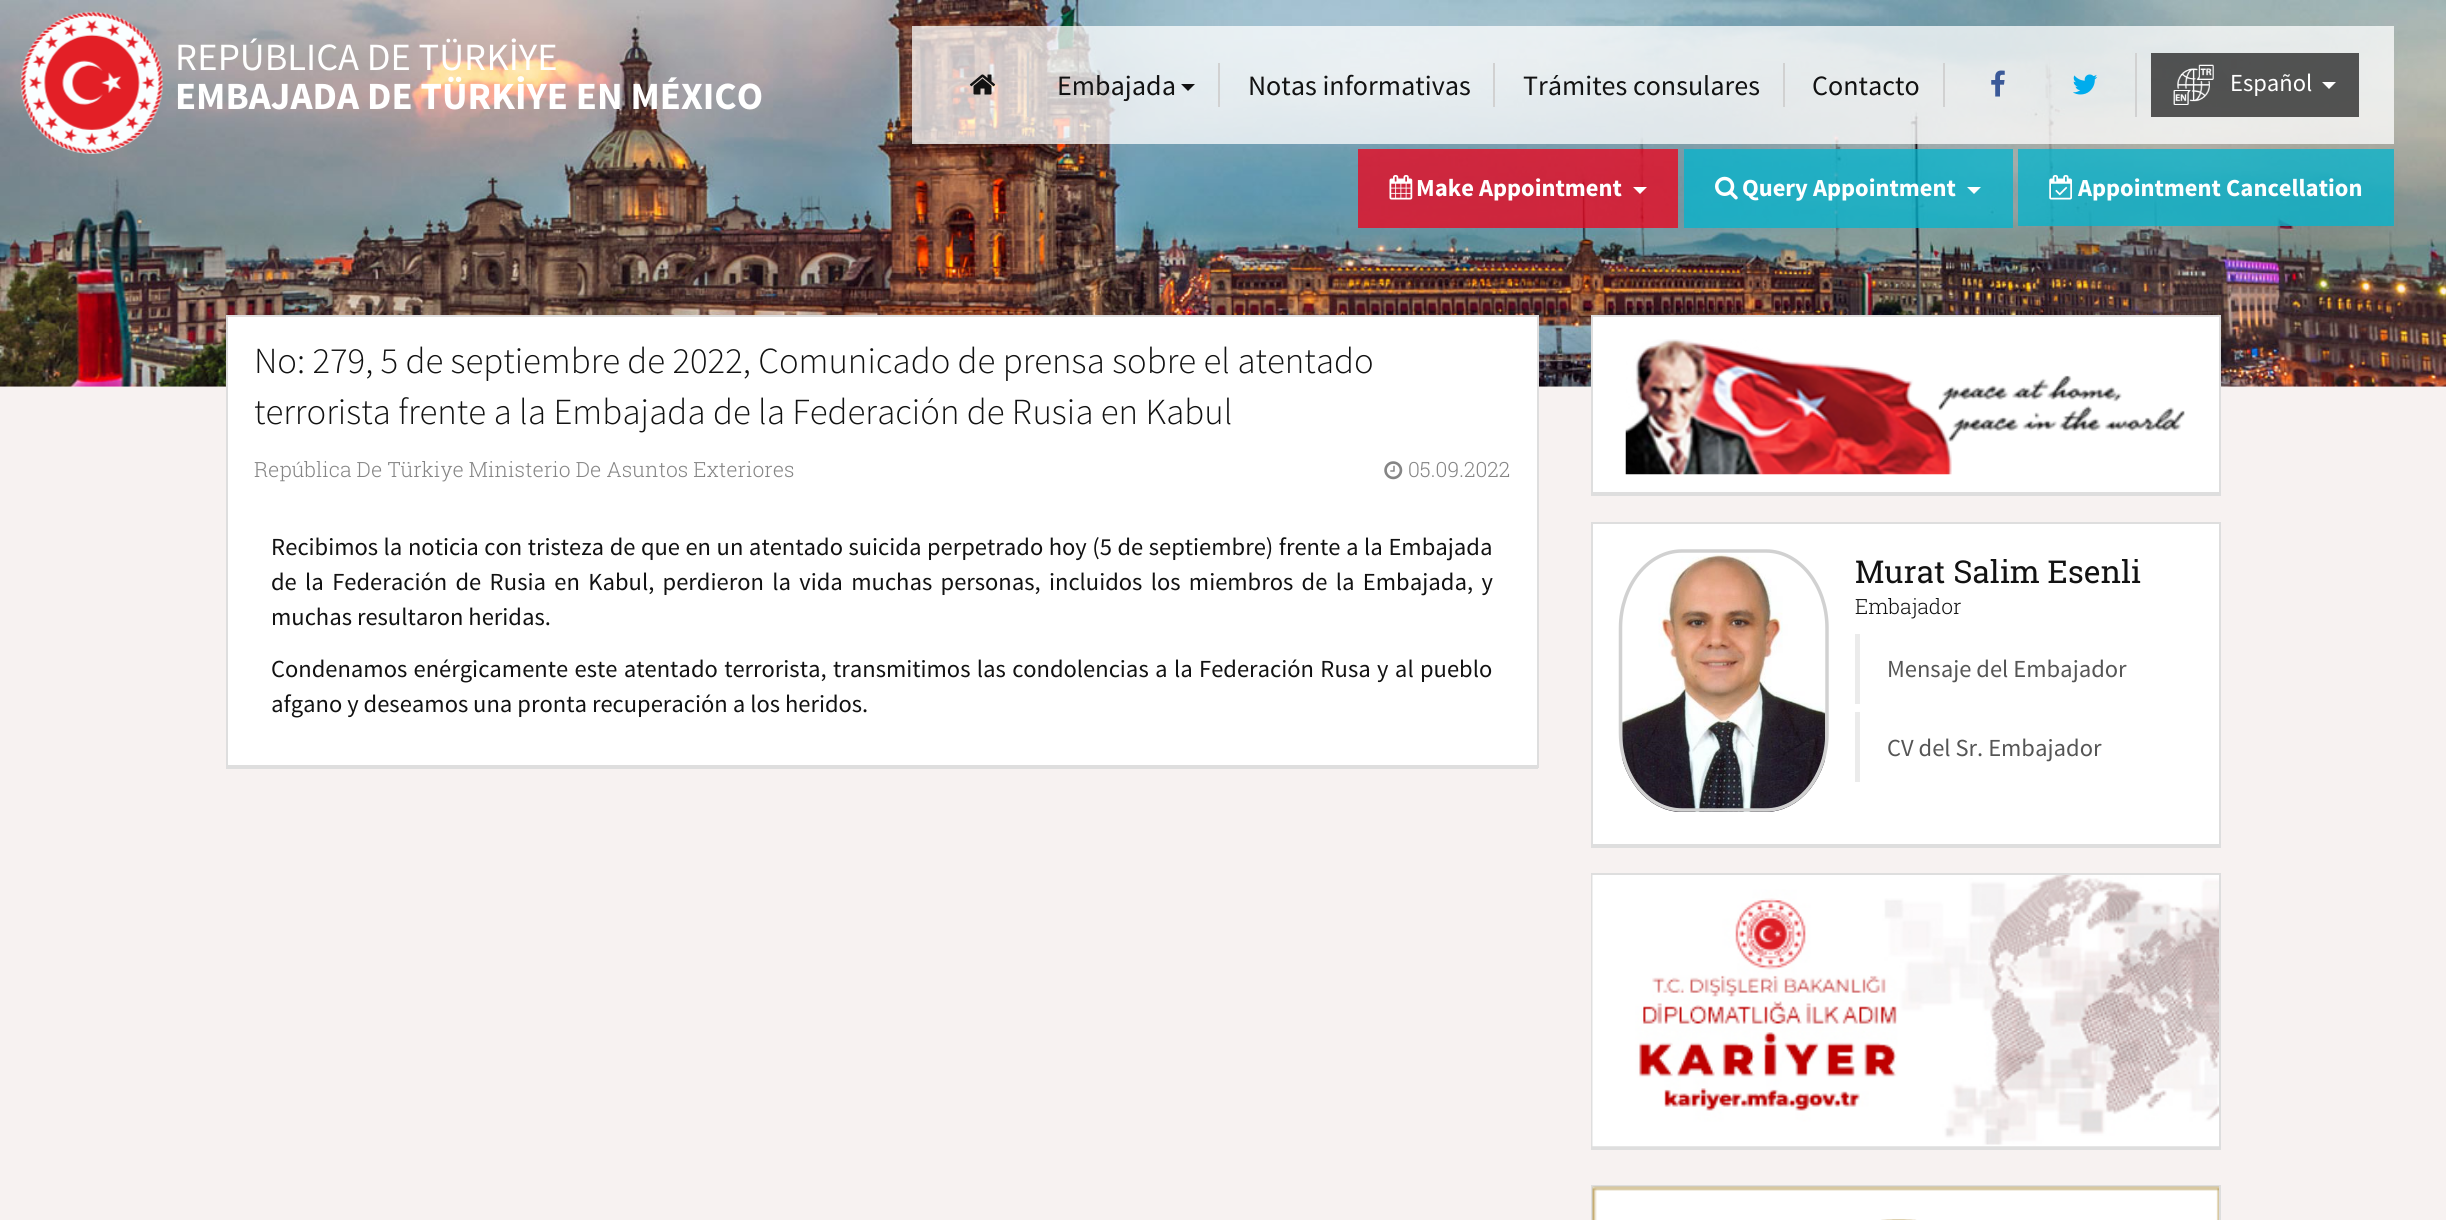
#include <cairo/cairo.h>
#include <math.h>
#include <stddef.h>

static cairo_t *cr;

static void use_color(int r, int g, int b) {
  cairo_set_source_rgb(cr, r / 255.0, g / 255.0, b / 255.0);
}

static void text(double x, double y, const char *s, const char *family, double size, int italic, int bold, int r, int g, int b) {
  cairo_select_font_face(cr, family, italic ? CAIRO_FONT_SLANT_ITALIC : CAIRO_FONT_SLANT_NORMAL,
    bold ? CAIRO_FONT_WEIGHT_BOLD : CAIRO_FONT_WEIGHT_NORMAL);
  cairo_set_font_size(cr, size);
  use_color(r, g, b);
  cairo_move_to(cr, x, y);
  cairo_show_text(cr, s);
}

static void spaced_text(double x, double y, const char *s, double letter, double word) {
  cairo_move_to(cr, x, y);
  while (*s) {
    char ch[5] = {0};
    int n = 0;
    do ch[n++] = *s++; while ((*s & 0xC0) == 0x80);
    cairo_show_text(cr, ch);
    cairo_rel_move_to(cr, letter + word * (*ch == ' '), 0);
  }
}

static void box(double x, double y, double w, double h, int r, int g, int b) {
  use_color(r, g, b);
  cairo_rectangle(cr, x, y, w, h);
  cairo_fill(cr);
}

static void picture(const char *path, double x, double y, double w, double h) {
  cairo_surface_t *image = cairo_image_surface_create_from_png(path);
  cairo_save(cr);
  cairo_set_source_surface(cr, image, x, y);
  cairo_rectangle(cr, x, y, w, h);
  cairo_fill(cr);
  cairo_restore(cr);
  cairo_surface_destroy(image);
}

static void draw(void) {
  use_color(247, 242, 241);
  cairo_paint(cr);
  picture("img_01.png", 0, 0, 2446, 387);
  picture("img_02.png", 20, 11, 144, 143);
  cairo_set_source_rgba(cr, 1, 1, 1, 0.75);
  cairo_rectangle(cr, 912, 26, 1482, 118);
  cairo_fill(cr);
  box(1027, 53, 2, 64, 209, 209, 209);
  picture("img_03.png", 969, 74, 27, 21);
  box(1218, 63, 2, 44, 209, 209, 209);
  use_color(18, 18, 18);
  cairo_new_path(cr);
  cairo_move_to(cr, 1181, 84);
  cairo_line_to(cr, 1195, 84);
  cairo_line_to(cr, 1188, 91);
  cairo_close_path(cr);
  cairo_fill(cr);
  box(1493, 63, 2, 44, 209, 209, 209);
  box(1783, 63, 2, 44, 209, 209, 209);
  box(1943, 63, 2, 44, 209, 209, 209);
  box(2135, 53, 2, 64, 209, 209, 209);
  picture("img_04.png", 1991, 70, 14, 27);
  picture("img_05.png", 2073, 74, 25, 21);
  cairo_set_source_rgba(cr, 0.071, 0.071, 0.071, 0.7);
  cairo_rectangle(cr, 2151, 53, 208, 64);
  cairo_fill(cr);
  picture("img_06.png", 2173, 64, 41, 41);
  use_color(255, 255, 255);
  cairo_new_path(cr);
  cairo_move_to(cr, 2322, 82);
  cairo_line_to(cr, 2336, 82);
  cairo_line_to(cr, 2329, 89);
  cairo_close_path(cr);
  cairo_fill(cr);
  cairo_set_source_rgba(cr, 0.933, 0, 0.102, 0.75);
  cairo_rectangle(cr, 1358, 149, 320, 79);
  cairo_fill(cr);
  picture("img_07.png", 1389, 175, 24, 25);
  use_color(255, 255, 255);
  cairo_new_path(cr);
  cairo_move_to(cr, 1633, 187);
  cairo_line_to(cr, 1647, 187);
  cairo_line_to(cr, 1640, 194);
  cairo_close_path(cr);
  cairo_fill(cr);
  cairo_set_source_rgba(cr, 0.008, 0.706, 0.804, 0.75);
  cairo_rectangle(cr, 1684, 149, 329, 79);
  cairo_fill(cr);
  picture("img_08.png", 1715, 176, 23, 24);
  use_color(255, 255, 255);
  cairo_new_path(cr);
  cairo_move_to(cr, 1967, 187);
  cairo_line_to(cr, 1981, 187);
  cairo_line_to(cr, 1974, 194);
  cairo_close_path(cr);
  cairo_fill(cr);
  cairo_set_source_rgba(cr, 0.008, 0.706, 0.804, 0.75);
  cairo_rectangle(cr, 2018, 149, 376, 77);
  cairo_fill(cr);
  picture("img_09.png", 2049, 175, 23, 25);
  box(228, 317, 1309, 448, 255, 255, 255);
  box(226, 315, 1312, 2, 222, 222, 222);
  box(1537, 315, 2, 453, 222, 222, 222);
  box(226, 765, 1312, 4, 222, 222, 222);
  box(226, 315, 2, 453, 222, 222, 222);
  picture("img_10.png", 1384, 461, 19, 19);
  box(1593, 317, 626, 175, 255, 255, 255);
  box(1591, 315, 630, 2, 222, 222, 222);
  box(2219, 315, 2, 180, 222, 222, 222);
  box(1591, 492, 630, 4, 222, 222, 222);
  box(1591, 315, 2, 180, 222, 222, 222);
  picture("img_11.png", 1625, 339, 560, 136);
  box(1593, 524, 626, 320, 255, 255, 255);
  box(1591, 522, 630, 2, 222, 222, 222);
  box(2219, 522, 2, 325, 222, 222, 222);
  box(1591, 844, 630, 4, 222, 222, 222);
  box(1591, 522, 2, 325, 222, 222, 222);
  picture("img_12.png", 1622, 554, 204, 258);
  cairo_new_path(cr);
  cairo_move_to(cr, 1682, 551);
  cairo_line_to(cr, 1766, 551);
  cairo_curve_to(cr, 1799.5, 551, 1827, 585.5, 1827, 628);
  cairo_line_to(cr, 1827, 733);
  cairo_curve_to(cr, 1827, 776, 1799.5, 810, 1766, 810);
  cairo_line_to(cr, 1682, 810);
  cairo_curve_to(cr, 1648, 810, 1620.5, 776, 1620.5, 733);
  cairo_line_to(cr, 1620.5, 628);
  cairo_curve_to(cr, 1620.5, 585.5, 1648, 551, 1682, 551);
  cairo_close_path(cr);
  use_color(209, 209, 209);
  cairo_set_line_width(cr, 3.5);
  cairo_stroke(cr);
  box(1855, 634, 5, 70, 235, 235, 235);
  box(1855, 712, 5, 70, 235, 235, 235);
  box(1591, 873, 630, 2, 222, 222, 222);
  box(2219, 873, 2, 277, 222, 222, 222);
  box(1591, 1146, 630, 4, 222, 222, 222);
  box(1591, 873, 2, 277, 222, 222, 222);
  picture("img_13.png", 1592, 875, 627, 272);
  box(1593, 1187, 626, 33, 255, 255, 255);
  box(1591, 1185, 630, 2, 222, 222, 222);
  box(2219, 1185, 2, 35, 222, 222, 222);
  box(1591, 1185, 2, 35, 222, 222, 222);
  picture("img_14.png", 1592, 1186, 627, 34);
  text(175, 70, "REPÚBLICA DE TÜRKİYE", "Source Sans Pro", 38.5, 0, 0, 255, 255, 255);
  text(175, 109, "EMBAJADA DE TÜRKİYE EN MÉXICO", "Source Sans Pro", 38.5, 0, 1, 255, 255, 255);
  text(1057, 95, "Embajada", "Source Sans Pro", 28, 0, 0, 18, 18, 18);
  text(1248, 95, "Notas informativas", "Source Sans Pro", 28, 0, 0, 18, 18, 18);
  text(1523, 95, "Trámites consulares", "Source Sans Pro", 28, 0, 0, 18, 18, 18);
  text(1812, 95, "Contacto", "Source Sans Pro", 28, 0, 0, 18, 18, 18);
  text(2230, 91, "Español", "Source Sans Pro", 24.5, 0, 0, 255, 255, 255);
  text(1416, 196, "Make Appointment", "Source Sans Pro", 24.5, 0, 1, 255, 255, 255);
  text(1742, 196, "Query Appointment", "Source Sans Pro", 24.5, 0, 1, 255, 255, 255);
  text(2078, 196, "Appointment Cancellation", "Source Sans Pro", 24.5, 0, 1, 255, 255, 255);
  text(254, 373, "No: 279, 5 de septiembre de 2022, Comunicado de prensa sobre el atentado", "Source Sans Pro Light", 36.75, 0, 0, 18, 18, 18);
  text(254, 424, "terrorista frente a la Embajada de la Federación de Rusia en Kabul", "Source Sans Pro Light", 36.75, 0, 0, 18, 18, 18);
  text(254, 477, "República De Türkiye Ministerio De Asuntos Exteriores", "Roboto Slab Light", 21, 0, 0, 133, 133, 133);
  text(1408, 477, "05.09.2022", "Roboto Slab Light", 21, 0, 0, 133, 133, 133);
  cairo_select_font_face(cr, "Source Sans Pro", CAIRO_FONT_SLANT_NORMAL, CAIRO_FONT_WEIGHT_NORMAL);
  cairo_set_font_size(cr, 24.5);
  use_color(18, 18, 18);
  spaced_text(271, 555, "Recibimos la noticia con tristeza de que en un atentado suicida perpetrado hoy (5 de septiembre) frente a la Embajada", 0, 0.6);
  spaced_text(271, 590, "de la Federación de Rusia en Kabul, perdieron la vida muchas personas, incluidos los miembros de la Embajada, y", 0, 3.4);
  text(271, 625, "muchas resultaron heridas.", "Source Sans Pro", 24.5, 0, 0, 18, 18, 18);
  spaced_text(271, 677, "Condenamos enérgicamente este atentado terrorista, transmitimos las condolencias a la Federación Rusa y al pueblo", 0, 1.4);
  text(271, 712, "afgano y deseamos una pronta recuperación a los heridos.", "Source Sans Pro", 24.5, 0, 0, 18, 18, 18);
  text(1855, 583, "Murat Salim Esenli", "Roboto Slab", 31.5, 0, 0, 18, 18, 18);
  text(1855, 614, "Embajador", "Roboto Slab Light", 21, 0, 0, 18, 18, 18);
  text(1887, 677, "Mensaje del Embajador", "Source Sans Pro", 24.5, 0, 0, 85, 85, 85);
  text(1887, 756, "CV del Sr. Embajador", "Source Sans Pro", 24.5, 0, 0, 85, 85, 85);
}

int main(void) {
  cairo_surface_t *surface = cairo_image_surface_create(CAIRO_FORMAT_RGB24, 2446, 1220);
  cr = cairo_create(surface);
  cairo_font_options_t *options = cairo_font_options_create();
  cairo_font_options_set_hint_metrics(options, CAIRO_HINT_METRICS_OFF);
  cairo_font_options_set_hint_style(options, CAIRO_HINT_STYLE_NONE);
  cairo_set_font_options(cr, options);
  cairo_set_miter_limit(cr, 4);
  draw();
  cairo_surface_write_to_png(surface, "out.png");
  cairo_font_options_destroy(options);
  cairo_destroy(cr);
  cairo_surface_destroy(surface);
  return 0;
}
